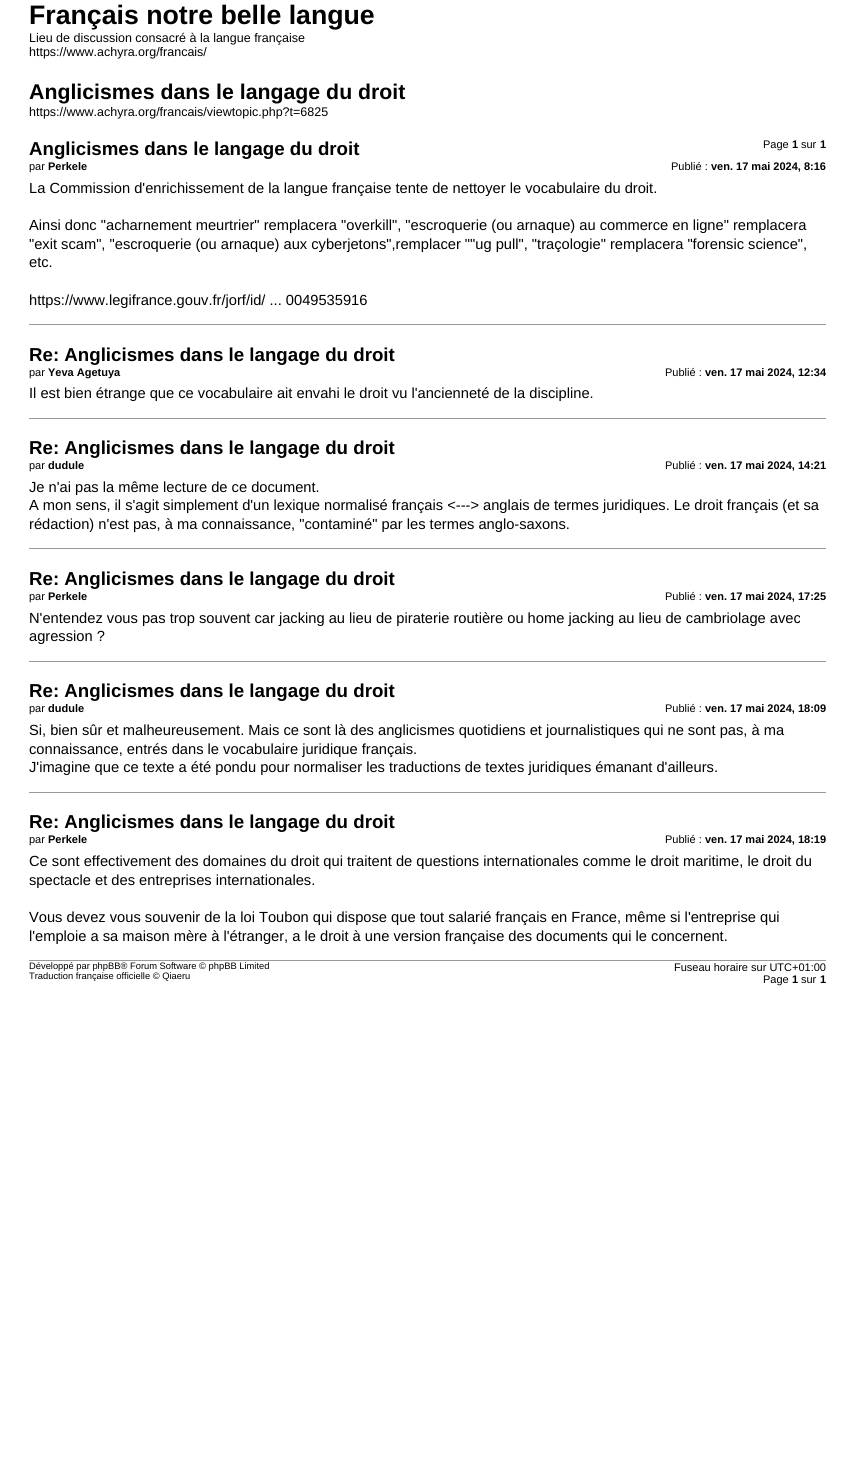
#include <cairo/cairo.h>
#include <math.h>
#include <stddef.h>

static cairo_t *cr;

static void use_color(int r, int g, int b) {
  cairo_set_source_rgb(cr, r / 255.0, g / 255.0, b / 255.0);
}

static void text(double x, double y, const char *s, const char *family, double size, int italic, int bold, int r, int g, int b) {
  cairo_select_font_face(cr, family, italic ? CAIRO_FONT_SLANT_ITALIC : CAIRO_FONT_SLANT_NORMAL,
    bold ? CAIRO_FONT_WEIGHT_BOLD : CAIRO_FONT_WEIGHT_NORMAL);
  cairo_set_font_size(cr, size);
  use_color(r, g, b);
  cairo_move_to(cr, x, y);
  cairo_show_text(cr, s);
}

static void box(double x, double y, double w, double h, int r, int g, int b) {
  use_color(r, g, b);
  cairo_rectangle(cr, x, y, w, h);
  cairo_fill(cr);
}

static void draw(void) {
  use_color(255, 255, 255);
  cairo_paint(cr);
  box(29, 324, 797, 1, 153, 153, 153);
  box(29, 418, 797, 1, 153, 153, 153);
  box(29, 548, 797, 1, 153, 153, 153);
  box(29, 661, 797, 1, 153, 153, 153);
  box(29, 792, 797, 1, 153, 153, 153);
  box(29, 960, 797, 1, 153, 153, 153);
  text(29, 24, "Français notre belle langue", "Liberation Sans", 26.7, 0, 1, 0, 0, 0);
  text(29, 42, "Lieu de discussion consacré à la langue française", "Liberation Sans", 12.5, 0, 0, 0, 0, 0);
  text(29, 56, "https://www.achyra.org/francais/", "Liberation Sans", 12.5, 0, 0, 0, 0, 0);
  text(29, 99, "Anglicismes dans le langage du droit", "Liberation Sans", 21.3, 0, 1, 0, 0, 0);
  text(29, 116, "https://www.achyra.org/francais/viewtopic.php?t=6825", "Liberation Sans", 12.5, 0, 0, 0, 0, 0);
  text(763, 148, "Page", "Liberation Sans", 11, 0, 0, 0, 0, 0);
  text(792, 148, "1", "Liberation Sans", 11, 0, 1, 0, 0, 0);
  text(801, 148, "sur", "Liberation Sans", 11, 0, 0, 0, 0, 0);
  text(820, 148, "1", "Liberation Sans", 11, 0, 1, 0, 0, 0);
  text(29, 155, "Anglicismes dans le langage du droit", "Liberation Sans", 18.7, 0, 1, 0, 0, 0);
  text(29, 170, "par", "Liberation Sans", 11, 0, 0, 0, 0, 0);
  text(48, 170, "Perkele", "Liberation Sans", 11, 0, 1, 0, 0, 0);
  text(671, 170, "Publié :", "Liberation Sans", 11, 0, 0, 0, 0, 0);
  text(711, 170, "ven. 17 mai 2024, 8:16", "Liberation Sans", 11, 0, 1, 0, 0, 0);
  text(29, 193, "La Commission d'enrichissement de la langue française tente de nettoyer le vocabulaire du droit.", "Liberation Sans", 14.67, 0, 0, 0, 0, 0);
  text(29, 230, "Ainsi donc \"acharnement meurtrier\" remplacera \"overkill\", \"escroquerie (ou arnaque) au commerce en ligne\" remplacera", "Liberation Sans", 14.67, 0, 0, 0, 0, 0);
  text(29, 249, "\"exit scam\", \"escroquerie (ou arnaque) aux cyberjetons\",remplacer \"\"ug pull\", \"traçologie\" remplacera \"forensic science\",", "Liberation Sans", 14.67, 0, 0, 0, 0, 0);
  text(29, 267, "etc.", "Liberation Sans", 14.67, 0, 0, 0, 0, 0);
  text(29, 305, "https://www.legifrance.gouv.fr/jorf/id/ ... 0049535916", "Liberation Sans", 14.67, 0, 0, 0, 0, 0);
  text(29, 361, "Re: Anglicismes dans le langage du droit", "Liberation Sans", 18.7, 0, 1, 0, 0, 0);
  text(29, 376, "par", "Liberation Sans", 11, 0, 0, 0, 0, 0);
  text(48, 376, "Yeva Agetuya", "Liberation Sans", 11, 0, 1, 0, 0, 0);
  text(665, 376, "Publié :", "Liberation Sans", 11, 0, 0, 0, 0, 0);
  text(705, 376, "ven. 17 mai 2024, 12:34", "Liberation Sans", 11, 0, 1, 0, 0, 0);
  text(29, 398, "Il est bien étrange que ce vocabulaire ait envahi le droit vu l'ancienneté de la discipline.", "Liberation Sans", 14.67, 0, 0, 0, 0, 0);
  text(29, 454, "Re: Anglicismes dans le langage du droit", "Liberation Sans", 18.7, 0, 1, 0, 0, 0);
  text(29, 469, "par", "Liberation Sans", 11, 0, 0, 0, 0, 0);
  text(48, 469, "dudule", "Liberation Sans", 11, 0, 1, 0, 0, 0);
  text(665, 469, "Publié :", "Liberation Sans", 11, 0, 0, 0, 0, 0);
  text(705, 469, "ven. 17 mai 2024, 14:21", "Liberation Sans", 11, 0, 1, 0, 0, 0);
  text(29, 492, "Je n'ai pas la même lecture de ce document.", "Liberation Sans", 14.67, 0, 0, 0, 0, 0);
  text(29, 510, "A mon sens, il s'agit simplement d'un lexique normalisé français <---> anglais de termes juridiques. Le droit français (et sa", "Liberation Sans", 14.67, 0, 0, 0, 0, 0);
  text(29, 529, "rédaction) n'est pas, à ma connaissance, \"contaminé\" par les termes anglo-saxons.", "Liberation Sans", 14.67, 0, 0, 0, 0, 0);
  text(29, 585, "Re: Anglicismes dans le langage du droit", "Liberation Sans", 18.7, 0, 1, 0, 0, 0);
  text(29, 600, "par", "Liberation Sans", 11, 0, 0, 0, 0, 0);
  text(48, 600, "Perkele", "Liberation Sans", 11, 0, 1, 0, 0, 0);
  text(665, 600, "Publié :", "Liberation Sans", 11, 0, 0, 0, 0, 0);
  text(705, 600, "ven. 17 mai 2024, 17:25", "Liberation Sans", 11, 0, 1, 0, 0, 0);
  text(29, 623, "N'entendez vous pas trop souvent car jacking au lieu de piraterie routière ou home jacking au lieu de cambriolage avec", "Liberation Sans", 14.67, 0, 0, 0, 0, 0);
  text(29, 641, "agression ?", "Liberation Sans", 14.67, 0, 0, 0, 0, 0);
  text(29, 697, "Re: Anglicismes dans le langage du droit", "Liberation Sans", 18.7, 0, 1, 0, 0, 0);
  text(29, 712, "par", "Liberation Sans", 11, 0, 0, 0, 0, 0);
  text(48, 712, "dudule", "Liberation Sans", 11, 0, 1, 0, 0, 0);
  text(665, 712, "Publié :", "Liberation Sans", 11, 0, 0, 0, 0, 0);
  text(705, 712, "ven. 17 mai 2024, 18:09", "Liberation Sans", 11, 0, 1, 0, 0, 0);
  text(29, 735, "Si, bien sûr et malheureusement. Mais ce sont là des anglicismes quotidiens et journalistiques qui ne sont pas, à ma", "Liberation Sans", 14.67, 0, 0, 0, 0, 0);
  text(29, 754, "connaissance, entrés dans le vocabulaire juridique français.", "Liberation Sans", 14.67, 0, 0, 0, 0, 0);
  text(29, 772, "J'imagine que ce texte a été pondu pour normaliser les traductions de textes juridiques émanant d'ailleurs.", "Liberation Sans", 14.67, 0, 0, 0, 0, 0);
  text(29, 828, "Re: Anglicismes dans le langage du droit", "Liberation Sans", 18.7, 0, 1, 0, 0, 0);
  text(29, 843, "par", "Liberation Sans", 11, 0, 0, 0, 0, 0);
  text(48, 843, "Perkele", "Liberation Sans", 11, 0, 1, 0, 0, 0);
  text(665, 843, "Publié :", "Liberation Sans", 11, 0, 0, 0, 0, 0);
  text(705, 843, "ven. 17 mai 2024, 18:19", "Liberation Sans", 11, 0, 1, 0, 0, 0);
  text(29, 866, "Ce sont effectivement des domaines du droit qui traitent de questions internationales comme le droit maritime, le droit du", "Liberation Sans", 14.67, 0, 0, 0, 0, 0);
  text(29, 885, "spectacle et des entreprises internationales.", "Liberation Sans", 14.67, 0, 0, 0, 0, 0);
  text(29, 922, "Vous devez vous souvenir de la loi Toubon qui dispose que tout salarié français en France, même si l'entreprise qui", "Liberation Sans", 14.67, 0, 0, 0, 0, 0);
  text(29, 941, "l'emploie a sa maison mère à l'étranger, a le droit à une version française des documents qui le concernent.", "Liberation Sans", 14.67, 0, 0, 0, 0, 0);
  text(29, 969, "Développé par phpBB® Forum Software © phpBB Limited", "Liberation Sans", 9.35, 0, 0, 0, 0, 0);
  text(29, 979, "Traduction française officielle © Qiaeru", "Liberation Sans", 9.35, 0, 0, 0, 0, 0);
  text(674, 971, "Fuseau horaire sur UTC+01:00", "Liberation Sans", 11, 0, 0, 0, 0, 0);
  text(763, 983, "Page", "Liberation Sans", 11, 0, 0, 0, 0, 0);
  text(792, 983, "1", "Liberation Sans", 11, 0, 1, 0, 0, 0);
  text(801, 983, "sur", "Liberation Sans", 11, 0, 0, 0, 0, 0);
  text(820, 983, "1", "Liberation Sans", 11, 0, 1, 0, 0, 0);
}

int main(void) {
  cairo_surface_t *surface = cairo_image_surface_create(CAIRO_FORMAT_RGB24, 855, 1477);
  cr = cairo_create(surface);
  cairo_font_options_t *options = cairo_font_options_create();
  cairo_font_options_set_hint_metrics(options, CAIRO_HINT_METRICS_OFF);
  cairo_font_options_set_hint_style(options, CAIRO_HINT_STYLE_NONE);
  cairo_set_font_options(cr, options);
  cairo_set_miter_limit(cr, 4);
  draw();
  cairo_surface_write_to_png(surface, "out.png");
  cairo_font_options_destroy(options);
  cairo_destroy(cr);
  cairo_surface_destroy(surface);
  return 0;
}
